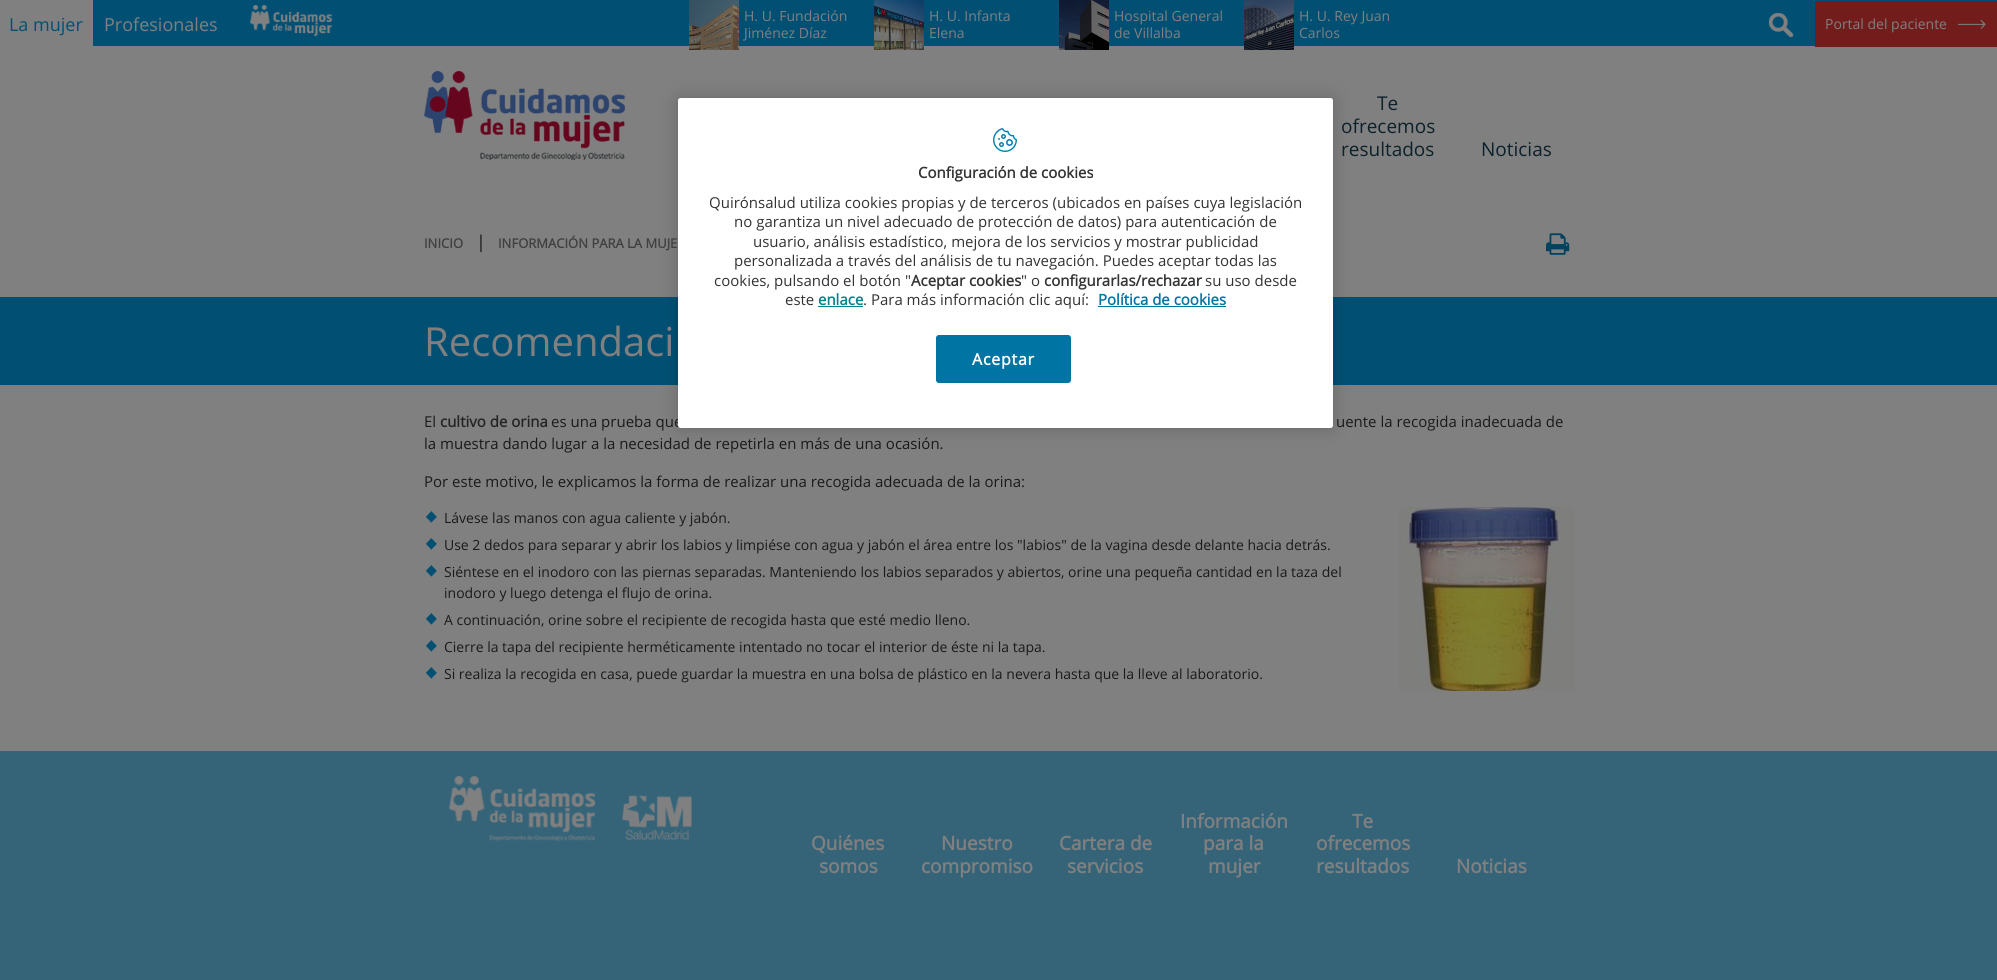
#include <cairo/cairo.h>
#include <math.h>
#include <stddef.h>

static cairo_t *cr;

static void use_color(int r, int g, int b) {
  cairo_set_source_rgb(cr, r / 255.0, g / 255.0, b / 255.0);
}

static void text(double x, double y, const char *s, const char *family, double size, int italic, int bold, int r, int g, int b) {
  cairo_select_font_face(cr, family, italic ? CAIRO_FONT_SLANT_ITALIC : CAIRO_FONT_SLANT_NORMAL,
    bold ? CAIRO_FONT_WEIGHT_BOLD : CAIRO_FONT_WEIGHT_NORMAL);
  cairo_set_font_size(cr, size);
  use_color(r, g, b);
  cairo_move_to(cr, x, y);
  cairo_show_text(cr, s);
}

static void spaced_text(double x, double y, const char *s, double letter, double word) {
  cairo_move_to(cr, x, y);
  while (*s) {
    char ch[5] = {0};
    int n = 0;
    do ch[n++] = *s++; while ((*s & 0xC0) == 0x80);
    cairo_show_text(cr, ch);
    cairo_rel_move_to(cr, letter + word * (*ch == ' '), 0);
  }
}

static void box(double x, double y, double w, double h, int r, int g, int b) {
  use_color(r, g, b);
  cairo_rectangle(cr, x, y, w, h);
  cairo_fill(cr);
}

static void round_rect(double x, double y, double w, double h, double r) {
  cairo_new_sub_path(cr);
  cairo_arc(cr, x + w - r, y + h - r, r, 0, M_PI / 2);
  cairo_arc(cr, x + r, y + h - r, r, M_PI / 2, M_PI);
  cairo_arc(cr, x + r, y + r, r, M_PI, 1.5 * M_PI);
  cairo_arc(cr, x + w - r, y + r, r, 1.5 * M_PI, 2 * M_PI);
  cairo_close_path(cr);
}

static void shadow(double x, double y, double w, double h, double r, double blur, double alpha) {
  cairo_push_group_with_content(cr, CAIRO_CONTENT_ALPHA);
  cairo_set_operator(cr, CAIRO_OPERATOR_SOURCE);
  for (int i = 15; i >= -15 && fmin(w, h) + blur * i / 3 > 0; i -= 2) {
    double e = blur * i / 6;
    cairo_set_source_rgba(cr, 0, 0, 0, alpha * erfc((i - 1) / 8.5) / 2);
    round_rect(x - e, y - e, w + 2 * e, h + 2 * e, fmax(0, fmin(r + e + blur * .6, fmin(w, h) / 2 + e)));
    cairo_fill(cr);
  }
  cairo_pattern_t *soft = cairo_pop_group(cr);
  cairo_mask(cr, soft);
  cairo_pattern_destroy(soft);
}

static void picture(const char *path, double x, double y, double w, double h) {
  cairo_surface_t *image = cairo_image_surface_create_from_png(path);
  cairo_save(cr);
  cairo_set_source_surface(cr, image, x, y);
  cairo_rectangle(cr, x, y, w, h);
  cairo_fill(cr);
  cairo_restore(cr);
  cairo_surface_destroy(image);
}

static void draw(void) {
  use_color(128, 128, 128);
  cairo_paint(cr);
  box(93, 0, 1904, 46, 1, 80, 116);
  picture("img_01.png", 250, 5, 82, 32);
  picture("img_02.png", 689, 0, 50, 50);
  picture("img_03.png", 874, 0, 50, 50);
  picture("img_04.png", 1059, 0, 50, 50);
  picture("img_05.png", 1244, 0, 50, 50);
  picture("img_06.png", 1768, 12, 26, 26);
  box(1815, 1, 182, 46, 114, 28, 28);
  picture("img_07.png", 1958, 19, 28, 11);
  picture("img_08.png", 424, 71, 201, 89);
  picture("img_09.png", 1546, 233, 24, 22);
  box(0, 297, 1997, 88, 1, 80, 116);
  picture("img_10.png", 426, 511, 11, 12);
  picture("img_11.png", 1399, 507, 175, 184);
  picture("img_10.png", 426, 538, 11, 12);
  picture("img_10.png", 426, 565, 11, 12);
  picture("img_10.png", 426, 613, 11, 12);
  picture("img_10.png", 426, 640, 11, 12);
  picture("img_10.png", 426, 667, 11, 12);
  box(0, 751, 1997, 229, 53, 100, 121);
  picture("img_12.png", 449, 776, 243, 65);
  use_color(0, 0, 0);
  shadow(678, 98, 655, 330, 2.5, 9, 0.2);
  text(9, 31, "La mujer", "Open Sans", 18, 0, 0, 1, 80, 116);
  text(104, 31, "Profesionales", "Open Sans", 18, 0, 0, 128, 128, 128);
  text(744, 21, "H. U. Fundación", "Open Sans", 14, 0, 0, 128, 128, 128);
  text(744, 38, "Jiménez Díaz", "Open Sans", 14, 0, 0, 128, 128, 128);
  text(929, 21, "H. U. Infanta", "Open Sans", 14, 0, 0, 128, 128, 128);
  text(929, 38, "Elena", "Open Sans", 14, 0, 0, 128, 128, 128);
  text(1114, 21, "Hospital General", "Open Sans", 14, 0, 0, 128, 128, 128);
  text(1114, 38, "de Villalba", "Open Sans", 14, 0, 0, 128, 128, 128);
  text(1299, 21, "H. U. Rey Juan", "Open Sans", 14, 0, 0, 128, 128, 128);
  text(1299, 38, "Carlos", "Open Sans", 14, 0, 0, 128, 128, 128);
  text(1825, 29, "Portal del paciente", "Open Sans", 14, 0, 0, 128, 128, 128);
  text(1377, 110, "Te", "Open Sans", 19, 0, 0, 12, 33, 42);
  text(1341, 133, "ofrecemos", "Open Sans", 19, 0, 0, 12, 33, 42);
  text(1341, 156, "resultados", "Open Sans", 19, 0, 0, 12, 33, 42);
  text(1481, 156, "Noticias", "Open Sans", 19, 0, 0, 12, 33, 42);
  text(424, 248, "INICIO", "Open Sans", 13, 0, 1, 64, 64, 64);
  text(476, 248, "|", "Open Sans", 17, 0, 1, 51, 51, 51);
  text(498, 248, "INFORMACIÓN PARA LA MUJE", "Open Sans", 13, 0, 1, 64, 64, 64);
  text(424, 356, "Recomendaci", "Open Sans", 40, 0, 0, 128, 128, 128);
  text(424, 427, "El", "Open Sans", 15, 0, 0, 26, 26, 26);
  text(440, 427, "cultivo de orina", "Open Sans", 15, 0, 1, 37, 37, 37);
  text(551, 427, "es una prueba que", "Open Sans", 15, 0, 0, 26, 26, 26);
  text(1336, 427, "uente la recogida inadecuada de", "Open Sans", 15, 0, 0, 26, 26, 26);
  text(424, 449, "la muestra dando lugar a la necesidad de repetirla en más de una ocasión.", "Open Sans", 15, 0, 0, 26, 26, 26);
  text(424, 487, "Por este motivo, le explicamos la forma de realizar una recogida adecuada de la orina:", "Open Sans", 15, 0, 0, 26, 26, 26);
  text(444, 523, "Lávese las manos con agua caliente y jabón.", "Open Sans", 14, 0, 0, 26, 26, 26);
  text(444, 550, "Use 2 dedos para separar y abrir los labios y limpiése con agua y jabón el área entre los \"labios\" de la vagina desde delante hacia detrás.", "Open Sans", 14, 0, 0, 26, 26, 26);
  text(444, 577, "Siéntese en el inodoro con las piernas separadas. Manteniendo los labios separados y abiertos, orine una pequeña cantidad en la taza del", "Open Sans", 14, 0, 0, 26, 26, 26);
  text(444, 598, "inodoro y luego detenga el flujo de orina.", "Open Sans", 14, 0, 0, 26, 26, 26);
  text(444, 625, "A continuación, orine sobre el recipiente de recogida hasta que esté medio lleno.", "Open Sans", 14, 0, 0, 26, 26, 26);
  text(444, 652, "Cierre la tapa del recipiente herméticamente intentado no tocar el interior de éste ni la tapa.", "Open Sans", 14, 0, 0, 26, 26, 26);
  text(444, 679, "Si realiza la recogida en casa, puede guardar la muestra en una bolsa de plástico en la nevera hasta que la lleve al laboratorio.", "Open Sans", 14, 0, 0, 26, 26, 26);
  text(811, 850, "Quiénes", "Open Sans", 19, 0, 1, 128, 128, 128);
  text(819, 873, "somos", "Open Sans", 19, 0, 1, 128, 128, 128);
  text(941, 850, "Nuestro", "Open Sans", 19, 0, 1, 128, 128, 128);
  text(921, 873, "compromiso", "Open Sans", 19, 0, 1, 128, 128, 128);
  text(1059, 850, "Cartera de", "Open Sans", 19, 0, 1, 128, 128, 128);
  text(1067, 873, "servicios", "Open Sans", 19, 0, 1, 128, 128, 128);
  text(1180, 828, "Información", "Open Sans", 19, 0, 1, 128, 128, 128);
  text(1203, 850, "para la", "Open Sans", 19, 0, 1, 128, 128, 128);
  text(1208, 873, "mujer", "Open Sans", 19, 0, 1, 128, 128, 128);
  text(1352, 828, "Te", "Open Sans", 19, 0, 1, 128, 128, 128);
  text(1316, 850, "ofrecemos", "Open Sans", 19, 0, 1, 128, 128, 128);
  text(1316, 873, "resultados", "Open Sans", 19, 0, 1, 128, 128, 128);
  text(1456, 873, "Noticias", "Open Sans", 19, 0, 1, 128, 128, 128);
  use_color(255, 255, 255);
  round_rect(678, 98, 655, 330, 2.5);
  cairo_fill(cr);
  picture("img_13.png", 993, 128, 24, 24);
  text(918, 178, "Configuración de cookies", "Open Sans", 15, 0, 1, 51, 51, 51);
  text(709, 208, "Quirónsalud utiliza cookies propias y de terceros (ubicados en países cuya legislación", "Open Sans", 15, 0, 0, 51, 51, 51);
  text(734, 227, "no garantiza un nivel adecuado de protección de datos) para autenticación de", "Open Sans", 15, 0, 0, 51, 51, 51);
  text(753, 247, "usuario, análisis estadístico, mejora de los servicios y mostrar publicidad", "Open Sans", 15, 0, 0, 51, 51, 51);
  text(734, 266, "personalizada a través del análisis de tu navegación. Puedes aceptar todas las", "Open Sans", 15, 0, 0, 51, 51, 51);
  text(714, 286, "cookies, pulsando el botón \"", "Open Sans", 15, 0, 0, 51, 51, 51);
  text(911, 286, "Aceptar cookies", "Open Sans", 15, 0, 1, 51, 51, 51);
  text(1021, 286, "\" o", "Open Sans", 15, 0, 0, 51, 51, 51);
  text(1044, 286, "configurarlas/rechazar", "Open Sans", 15, 0, 1, 51, 51, 51);
  text(1205, 286, "su uso desde", "Open Sans", 15, 0, 0, 51, 51, 51);
  text(785, 305, "este", "Open Sans", 15, 0, 0, 51, 51, 51);
  text(818, 305, "enlace", "Open Sans", 15, 0, 1, 0, 132, 136);
  box(818, 306, 45, 1, 0, 132, 136);
  text(863, 305, ". Para más información clic aquí:", "Open Sans", 15, 0, 0, 51, 51, 51);
  text(1098, 305, "Política de cookies", "Open Sans", 15, 0, 1, 0, 116, 163);
  box(1098, 306, 128, 1, 0, 116, 163);
  round_rect(936.5, 335.5, 134, 47, 2.5);
  cairo_fill_preserve(cr);
  cairo_set_line_width(cr, 1);
  cairo_stroke(cr);
  cairo_set_font_size(cr, 16);
  use_color(255, 255, 255);
  spaced_text(972, 365, "Aceptar", 0.75, 0);
}

int main(void) {
  cairo_surface_t *surface = cairo_image_surface_create(CAIRO_FORMAT_RGB24, 1997, 980);
  cr = cairo_create(surface);
  cairo_font_options_t *options = cairo_font_options_create();
  cairo_font_options_set_hint_metrics(options, CAIRO_HINT_METRICS_OFF);
  cairo_font_options_set_hint_style(options, CAIRO_HINT_STYLE_NONE);
  cairo_set_font_options(cr, options);
  cairo_set_miter_limit(cr, 4);
  draw();
  cairo_surface_write_to_png(surface, "out.png");
  cairo_font_options_destroy(options);
  cairo_destroy(cr);
  cairo_surface_destroy(surface);
  return 0;
}
